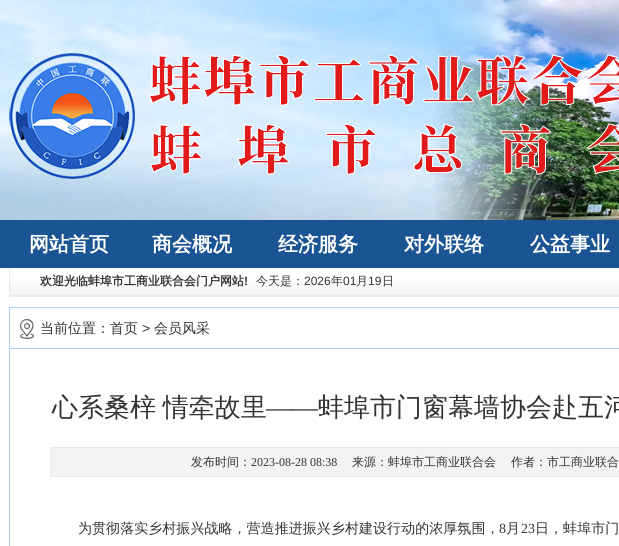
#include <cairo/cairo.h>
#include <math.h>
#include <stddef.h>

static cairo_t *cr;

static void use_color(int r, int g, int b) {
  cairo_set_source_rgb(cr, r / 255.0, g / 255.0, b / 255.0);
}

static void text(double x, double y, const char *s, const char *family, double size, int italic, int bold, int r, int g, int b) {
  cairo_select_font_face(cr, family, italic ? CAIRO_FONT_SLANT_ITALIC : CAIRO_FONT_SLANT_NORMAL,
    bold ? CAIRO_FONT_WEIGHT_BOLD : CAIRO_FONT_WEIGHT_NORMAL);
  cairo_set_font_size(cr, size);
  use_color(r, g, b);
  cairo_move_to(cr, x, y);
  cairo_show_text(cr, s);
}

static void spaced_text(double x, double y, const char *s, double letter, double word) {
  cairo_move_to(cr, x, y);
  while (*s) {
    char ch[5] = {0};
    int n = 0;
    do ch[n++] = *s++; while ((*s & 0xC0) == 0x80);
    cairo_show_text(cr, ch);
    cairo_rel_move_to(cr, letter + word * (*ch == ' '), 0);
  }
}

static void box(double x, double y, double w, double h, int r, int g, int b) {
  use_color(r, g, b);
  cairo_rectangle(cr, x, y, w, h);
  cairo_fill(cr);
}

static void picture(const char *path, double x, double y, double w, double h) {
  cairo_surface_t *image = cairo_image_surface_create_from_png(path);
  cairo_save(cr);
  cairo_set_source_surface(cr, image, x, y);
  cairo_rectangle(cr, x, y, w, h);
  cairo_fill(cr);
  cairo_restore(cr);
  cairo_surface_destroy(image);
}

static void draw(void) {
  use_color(255, 255, 255);
  cairo_paint(cr);
  picture("img_01.png", 0, 0, 616, 220);
  picture("img_02.png", 434, 0, 185, 220);
  picture("img_03.png", 9, 53, 610, 126);
  box(0, 220, 619, 48, 26, 84, 147);
  picture("img_04.png", 10, 280, 609, 16);
  box(9, 296, 610, 1, 232, 236, 239);
  box(9, 268, 1, 29, 232, 236, 239);
  cairo_rectangle(cr, 9.5, 307.5, 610, 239);
  use_color(170, 213, 255);
  cairo_set_line_width(cr, 1);
  cairo_stroke(cr);
  picture("img_05.png", 20, 319, 14, 20);
  box(10, 348, 609, 1, 173, 208, 240);
  use_color(243, 243, 243);
  cairo_rectangle(cr, 50.5, 447.5, 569, 29);
  cairo_fill_preserve(cr);
  use_color(234, 234, 234);
  cairo_stroke(cr);
  text(29, 251, "网站首页", "WenQuanYi Zen Hei", 20, 0, 1, 255, 255, 255);
  text(152, 251, "商会概况", "WenQuanYi Zen Hei", 20, 0, 1, 255, 255, 255);
  text(278, 251, "经济服务", "WenQuanYi Zen Hei", 20, 0, 1, 255, 255, 255);
  text(404, 251, "对外联络", "WenQuanYi Zen Hei", 20, 0, 1, 255, 255, 255);
  text(530, 251, "公益事业", "WenQuanYi Zen Hei", 20, 0, 1, 255, 255, 255);
  text(40, 285, "欢迎光临蚌埠市工商业联合会门户网站", "WenQuanYi Zen Hei", 12, 0, 1, 51, 51, 51);
  text(244, 285, "!", "Liberation Sans", 12, 0, 1, 51, 51, 51);
  text(256, 285, "今天是：", "WenQuanYi Zen Hei Medium", 12, 0, 0, 51, 51, 51);
  text(304, 285, "2026", "Liberation Sans", 12, 0, 0, 51, 51, 51);
  text(331, 285, "年", "WenQuanYi Zen Hei Medium", 12, 0, 0, 51, 51, 51);
  text(343, 285, "01", "Liberation Sans", 12, 0, 0, 51, 51, 51);
  text(356, 285, "月", "WenQuanYi Zen Hei Medium", 12, 0, 0, 51, 51, 51);
  text(368, 285, "19", "Liberation Sans", 12, 0, 0, 51, 51, 51);
  text(382, 285, "日", "WenQuanYi Zen Hei Medium", 12, 0, 0, 51, 51, 51);
  text(40, 333, "当前位置：首页", "WenQuanYi Zen Hei Medium", 14, 0, 0, 51, 51, 51);
  text(142, 333, ">", "Liberation Sans", 14, 0, 0, 51, 51, 51);
  text(154, 333, "会员风采", "WenQuanYi Zen Hei Medium", 14, 0, 0, 51, 51, 51);
  cairo_set_font_size(cr, 26);
  spaced_text(52, 416, "心系桑梓 情牵故里", 0, -1);
  text(266, 416, "——", "Liberation Serif", 26, 0, 0, 51, 51, 51);
  text(318, 416, "蚌埠市门窗幕墙协会赴五河", "WenQuanYi Zen Hei Medium", 26, 0, 0, 51, 51, 51);
  text(191, 466, "发布时间：", "WenQuanYi Zen Hei Medium", 12, 0, 0, 51, 51, 51);
  text(251, 466, "2023-08-28 08:38", "Liberation Serif", 12, 0, 0, 51, 51, 51);
  text(352, 466, "来源：蚌埠市工商业联合会", "WenQuanYi Zen Hei Medium", 12, 0, 0, 51, 51, 51);
  text(511, 466, "作者：市工商业联合", "WenQuanYi Zen Hei Medium", 12, 0, 0, 51, 51, 51);
  cairo_set_font_size(cr, 14);
  spaced_text(78, 533, "为贯彻落实乡村振兴战略，营造推进振兴乡村建设行动的浓厚氛围，", 0.05, 0);
  cairo_select_font_face(cr, "Liberation Serif", CAIRO_FONT_SLANT_NORMAL, CAIRO_FONT_WEIGHT_NORMAL);
  spaced_text(499, 533, "8", 0.05, 0);
  cairo_select_font_face(cr, "WenQuanYi Zen Hei Medium", CAIRO_FONT_SLANT_NORMAL, CAIRO_FONT_WEIGHT_NORMAL);
  spaced_text(506, 533, "月", 0.05, 0);
  cairo_select_font_face(cr, "Liberation Serif", CAIRO_FONT_SLANT_NORMAL, CAIRO_FONT_WEIGHT_NORMAL);
  spaced_text(521, 533, "23", 0.05, 0);
  cairo_select_font_face(cr, "WenQuanYi Zen Hei Medium", CAIRO_FONT_SLANT_NORMAL, CAIRO_FONT_WEIGHT_NORMAL);
  spaced_text(535, 533, "日，蚌埠市门", 0.05, 0);
}

int main(void) {
  cairo_surface_t *surface = cairo_image_surface_create(CAIRO_FORMAT_RGB24, 619, 546);
  cr = cairo_create(surface);
  cairo_font_options_t *options = cairo_font_options_create();
  cairo_font_options_set_hint_metrics(options, CAIRO_HINT_METRICS_OFF);
  cairo_font_options_set_hint_style(options, CAIRO_HINT_STYLE_NONE);
  cairo_set_font_options(cr, options);
  cairo_set_miter_limit(cr, 4);
  draw();
  cairo_surface_write_to_png(surface, "out.png");
  cairo_font_options_destroy(options);
  cairo_destroy(cr);
  cairo_surface_destroy(surface);
  return 0;
}
